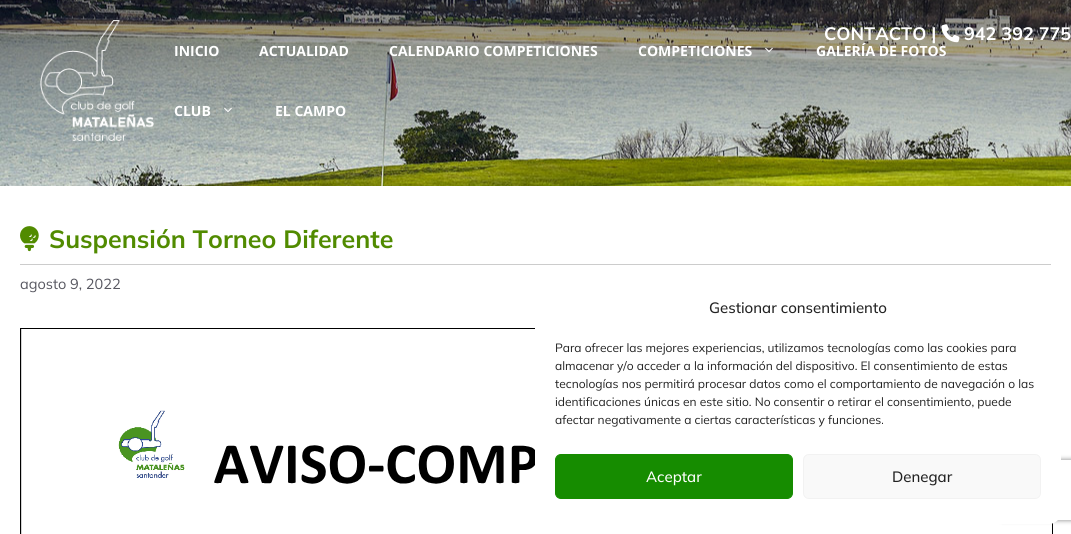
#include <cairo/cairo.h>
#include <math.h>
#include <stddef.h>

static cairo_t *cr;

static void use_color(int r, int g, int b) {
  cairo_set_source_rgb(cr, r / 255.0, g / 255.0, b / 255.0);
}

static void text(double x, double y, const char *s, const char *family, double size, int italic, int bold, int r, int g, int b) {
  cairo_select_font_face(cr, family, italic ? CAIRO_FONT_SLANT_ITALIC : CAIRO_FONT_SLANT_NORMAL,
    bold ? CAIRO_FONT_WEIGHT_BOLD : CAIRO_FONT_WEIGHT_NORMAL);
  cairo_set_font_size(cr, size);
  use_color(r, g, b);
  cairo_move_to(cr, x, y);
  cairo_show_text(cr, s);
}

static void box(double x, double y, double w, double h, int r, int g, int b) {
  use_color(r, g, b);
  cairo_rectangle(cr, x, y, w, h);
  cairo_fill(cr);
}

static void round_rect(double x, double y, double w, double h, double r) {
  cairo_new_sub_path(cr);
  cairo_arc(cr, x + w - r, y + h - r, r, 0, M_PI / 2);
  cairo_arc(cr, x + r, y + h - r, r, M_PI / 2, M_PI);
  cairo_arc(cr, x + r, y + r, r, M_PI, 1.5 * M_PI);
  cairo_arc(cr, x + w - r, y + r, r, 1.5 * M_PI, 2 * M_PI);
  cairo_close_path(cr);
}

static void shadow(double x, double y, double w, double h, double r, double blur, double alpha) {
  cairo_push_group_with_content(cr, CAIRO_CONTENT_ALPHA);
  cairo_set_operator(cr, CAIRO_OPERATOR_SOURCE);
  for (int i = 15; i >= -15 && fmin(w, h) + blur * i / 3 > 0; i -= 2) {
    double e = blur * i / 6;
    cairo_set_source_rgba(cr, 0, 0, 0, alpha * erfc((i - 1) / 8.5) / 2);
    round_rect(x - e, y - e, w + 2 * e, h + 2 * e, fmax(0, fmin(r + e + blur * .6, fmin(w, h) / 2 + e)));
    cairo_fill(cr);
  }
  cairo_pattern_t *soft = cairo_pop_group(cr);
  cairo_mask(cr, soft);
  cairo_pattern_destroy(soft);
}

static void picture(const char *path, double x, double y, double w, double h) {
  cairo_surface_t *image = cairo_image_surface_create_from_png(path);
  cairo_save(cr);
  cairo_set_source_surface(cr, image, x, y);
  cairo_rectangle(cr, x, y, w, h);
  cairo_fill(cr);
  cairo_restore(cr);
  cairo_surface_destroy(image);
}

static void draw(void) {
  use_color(255, 255, 255);
  cairo_paint(cr);
  picture("img_01.png", 0, 0, 1071, 186);
  picture("img_02.png", 40, 20, 114, 121);
  picture("img_03.png", 941, 24, 19, 19);
  picture("img_04.png", 765, 47, 8, 6);
  picture("img_05.png", 224, 107, 8, 6);
  box(20, 264, 1031, 1, 204, 204, 204);
  picture("img_06.png", 20, 226, 19, 26);
  box(21, 329, 1, 205, 211, 211, 211);
  cairo_rectangle(cr, 20.5, 328.5, 1032, 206);
  use_color(0, 0, 0);
  cairo_set_line_width(cr, 1);
  cairo_stroke(cr);
  picture("img_07.png", 118, 410, 417, 74);
  cairo_save(cr);
  cairo_set_fill_rule(cr, CAIRO_FILL_RULE_EVEN_ODD);
  cairo_new_path(cr);
  cairo_move_to(cr, 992, 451);
  cairo_line_to(cr, 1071, 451);
  cairo_line_to(cr, 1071, 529);
  cairo_line_to(cr, 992, 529);
  cairo_close_path(cr);
  cairo_move_to(cr, 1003, 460);
  cairo_line_to(cr, 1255, 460);
  cairo_curve_to(cr, 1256, 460, 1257, 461, 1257, 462);
  cairo_line_to(cr, 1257, 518);
  cairo_curve_to(cr, 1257, 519, 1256, 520, 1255, 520);
  cairo_line_to(cr, 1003, 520);
  cairo_curve_to(cr, 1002, 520, 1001, 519, 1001, 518);
  cairo_line_to(cr, 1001, 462);
  cairo_curve_to(cr, 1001, 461, 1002, 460, 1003, 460);
  cairo_close_path(cr);
  cairo_clip(cr);
  use_color(128, 128, 128);
  shadow(1001, 460, 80, 60, 2, 2.5, 1);
  cairo_restore(cr);
  use_color(255, 255, 255);
  round_rect(535, 282, 526, 242, 12);
  cairo_fill(cr);
  use_color(22, 140, 0);
  round_rect(555.5, 454.5, 237, 44, 5.5);
  cairo_fill_preserve(cr);
  cairo_stroke(cr);
  use_color(249, 249, 249);
  round_rect(803.5, 454.5, 237, 44, 5.5);
  cairo_fill_preserve(cr);
  use_color(242, 242, 242);
  cairo_stroke(cr);
  text(824, 40, "CONTACTO |", "Mulish", 18, 0, 1, 255, 255, 255);
  text(964, 40, "942 392 775", "Mulish", 18, 0, 1, 255, 255, 255);
  text(174, 56, "INICIO", "Open Sans", 14, 0, 1, 255, 255, 255);
  text(259, 56, "ACTUALIDAD", "Open Sans", 14, 0, 1, 255, 255, 255);
  text(389, 56, "CALENDARIO COMPETICIONES", "Open Sans", 14, 0, 1, 255, 255, 255);
  text(638, 56, "COMPETICIONES", "Open Sans", 14, 0, 1, 255, 255, 255);
  text(816, 56, "GALERÍA DE FOTOS", "Open Sans", 14, 0, 1, 255, 255, 255);
  text(174, 116, "CLUB", "Open Sans", 14, 0, 1, 255, 255, 255);
  text(275, 116, "EL CAMPO", "Open Sans", 14, 0, 1, 255, 255, 255);
  text(49, 248, "Suspensión Torneo Diferente", "Mulish", 25, 0, 1, 81, 139, 0);
  text(20, 289, "agosto 9, 2022", "Mulish", 14.5, 0, 0, 87, 87, 96);
  text(709, 313, "Gestionar consentimiento", "Mulish Medium", 15, 0, 0, 34, 34, 34);
  text(555, 352, "Para ofrecer las mejores experiencias, utilizamos tecnologías como las cookies para", "Mulish", 12, 0, 0, 34, 34, 34);
  text(555, 370, "almacenar y/o acceder a la información del dispositivo. El consentimiento de estas", "Mulish", 12, 0, 0, 34, 34, 34);
  text(555, 388, "tecnologías nos permitirá procesar datos como el comportamiento de navegación o las", "Mulish", 12, 0, 0, 34, 34, 34);
  text(555, 406, "identificaciones únicas en este sitio. No consentir o retirar el consentimiento, puede", "Mulish", 12, 0, 0, 34, 34, 34);
  text(555, 424, "afectar negativamente a ciertas características y funciones.", "Mulish", 12, 0, 0, 34, 34, 34);
  text(646, 482, "Aceptar", "Mulish Medium", 15, 0, 0, 255, 255, 255);
  text(892, 482, "Denegar", "Mulish Medium", 15, 0, 0, 34, 34, 34);
}

int main(void) {
  cairo_surface_t *surface = cairo_image_surface_create(CAIRO_FORMAT_RGB24, 1071, 534);
  cr = cairo_create(surface);
  cairo_font_options_t *options = cairo_font_options_create();
  cairo_font_options_set_hint_metrics(options, CAIRO_HINT_METRICS_OFF);
  cairo_font_options_set_hint_style(options, CAIRO_HINT_STYLE_NONE);
  cairo_set_font_options(cr, options);
  cairo_set_miter_limit(cr, 4);
  draw();
  cairo_surface_write_to_png(surface, "out.png");
  cairo_font_options_destroy(options);
  cairo_destroy(cr);
  cairo_surface_destroy(surface);
  return 0;
}
